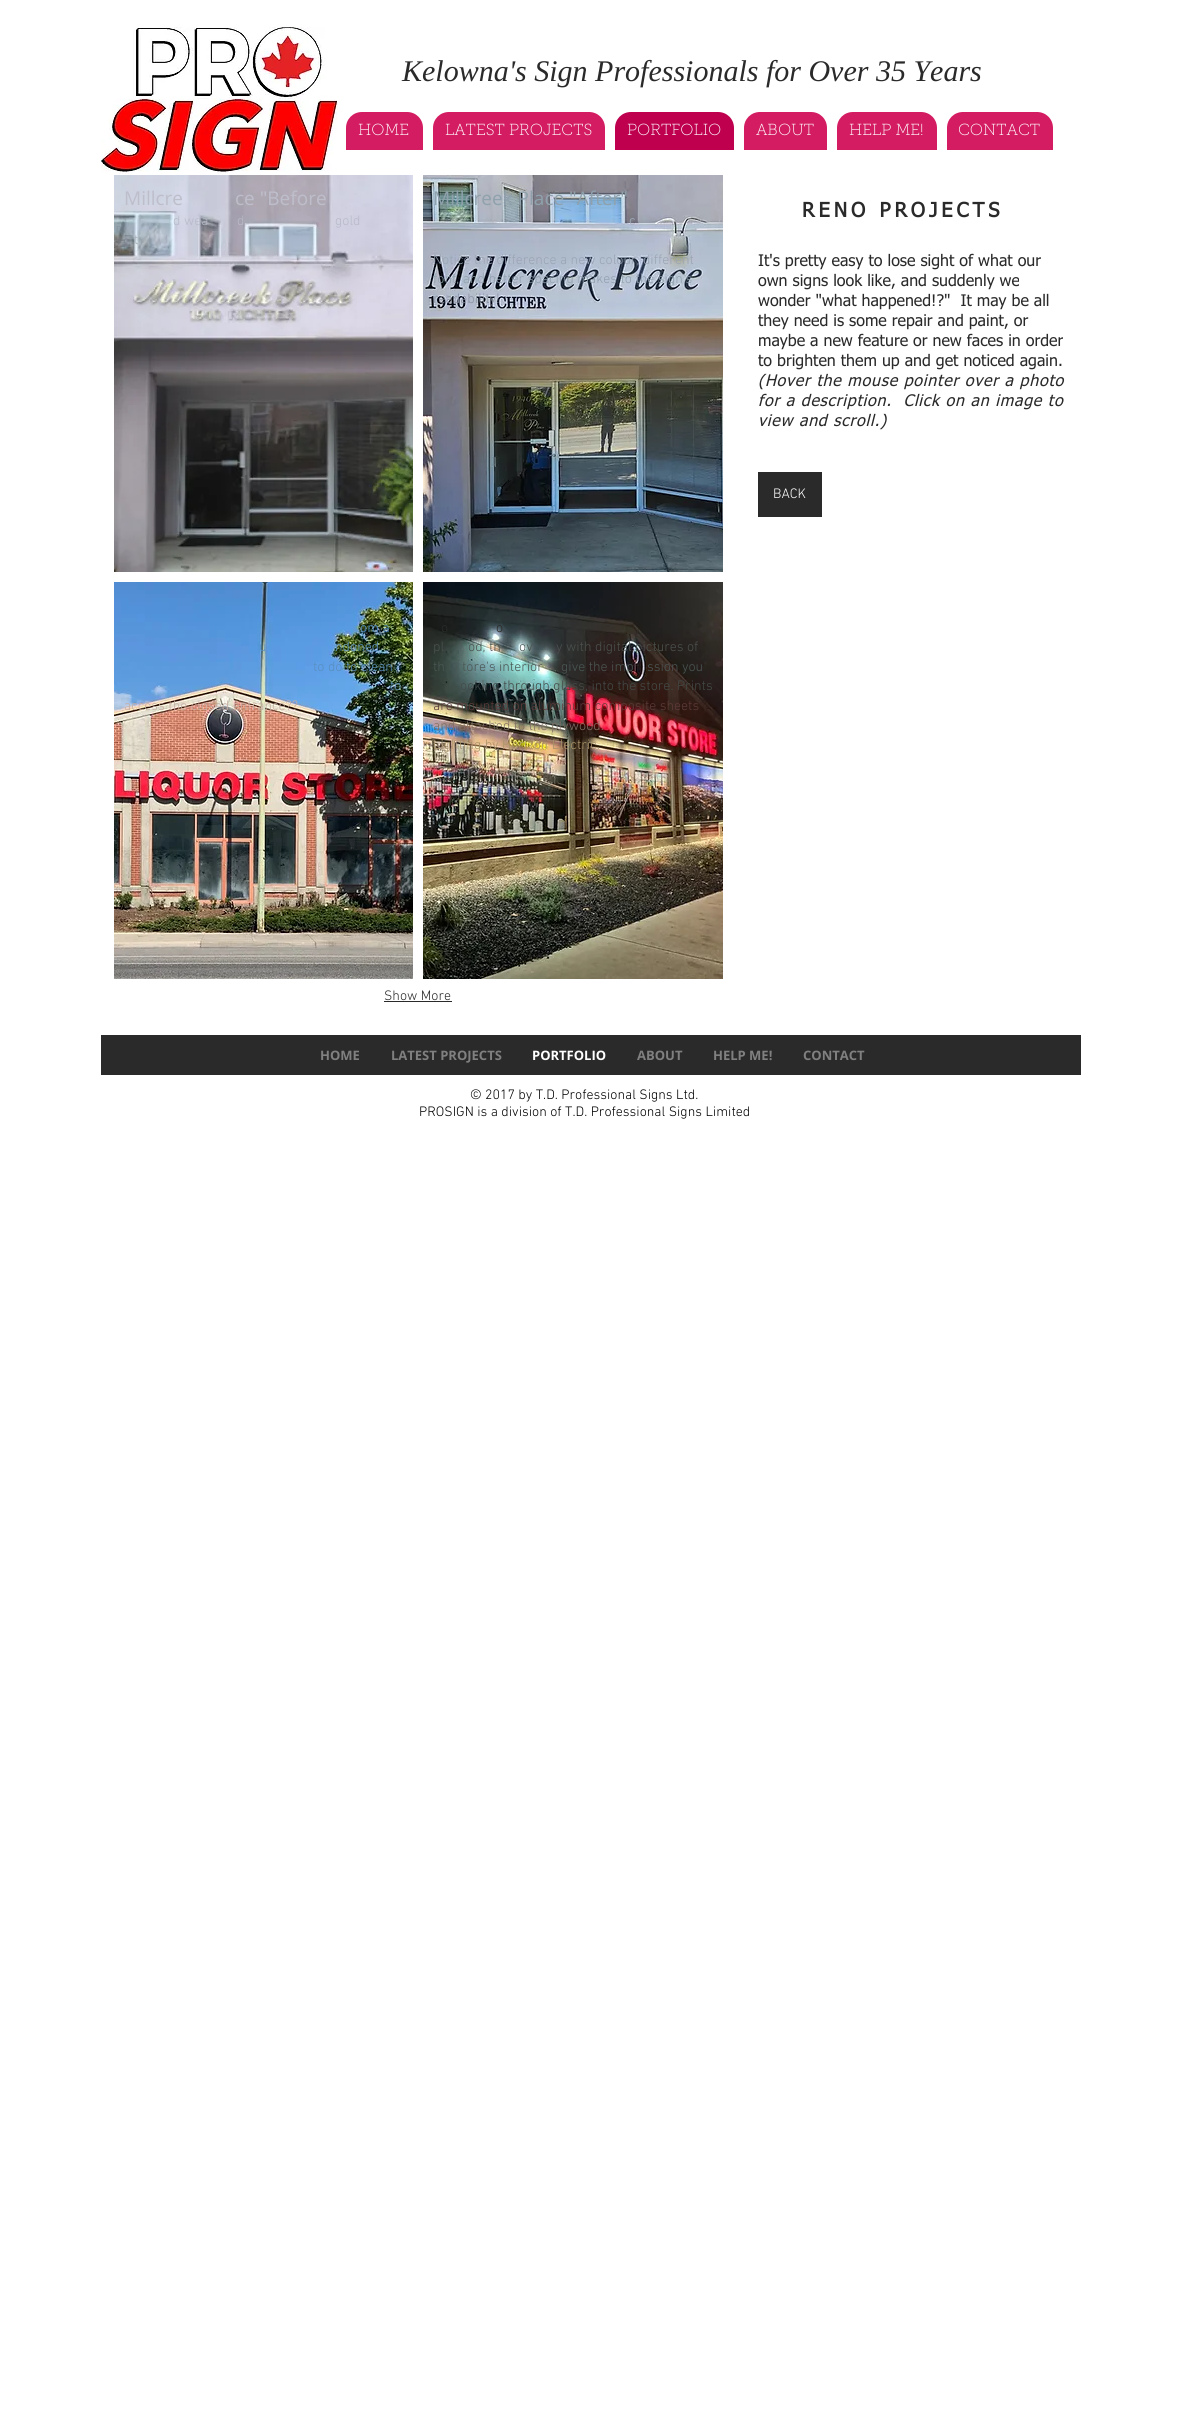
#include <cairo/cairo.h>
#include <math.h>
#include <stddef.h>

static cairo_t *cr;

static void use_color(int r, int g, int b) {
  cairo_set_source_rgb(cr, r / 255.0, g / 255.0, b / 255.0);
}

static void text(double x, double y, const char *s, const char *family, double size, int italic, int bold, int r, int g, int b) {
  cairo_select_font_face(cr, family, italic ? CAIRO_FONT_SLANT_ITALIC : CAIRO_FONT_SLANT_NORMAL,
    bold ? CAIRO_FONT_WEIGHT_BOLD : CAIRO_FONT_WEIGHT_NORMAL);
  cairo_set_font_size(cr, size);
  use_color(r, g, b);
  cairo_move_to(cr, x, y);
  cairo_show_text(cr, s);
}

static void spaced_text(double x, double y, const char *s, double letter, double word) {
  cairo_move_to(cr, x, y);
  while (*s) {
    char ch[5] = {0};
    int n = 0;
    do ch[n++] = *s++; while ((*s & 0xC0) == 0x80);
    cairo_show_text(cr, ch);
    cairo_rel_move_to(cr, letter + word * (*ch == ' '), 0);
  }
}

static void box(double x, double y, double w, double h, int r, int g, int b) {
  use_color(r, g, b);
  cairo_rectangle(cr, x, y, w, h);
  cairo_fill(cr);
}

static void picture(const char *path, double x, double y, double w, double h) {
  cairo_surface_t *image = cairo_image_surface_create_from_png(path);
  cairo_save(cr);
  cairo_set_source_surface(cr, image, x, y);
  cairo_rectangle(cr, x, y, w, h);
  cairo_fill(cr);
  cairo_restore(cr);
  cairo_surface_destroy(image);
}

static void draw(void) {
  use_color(255, 255, 255);
  cairo_paint(cr);
  picture("img_01.png", 101, 27, 237, 147);
  use_color(212, 28, 98);
  cairo_new_path(cr);
  cairo_move_to(cr, 362, 112);
  cairo_line_to(cr, 407, 112);
  cairo_curve_to(cr, 416, 112, 423, 119, 423, 128);
  cairo_line_to(cr, 423, 150);
  cairo_line_to(cr, 346, 150);
  cairo_line_to(cr, 346, 128);
  cairo_curve_to(cr, 346, 119, 353, 112, 362, 112);
  cairo_close_path(cr);
  cairo_fill(cr);
  cairo_new_path(cr);
  cairo_move_to(cr, 449, 112);
  cairo_line_to(cr, 589, 112);
  cairo_curve_to(cr, 598, 112, 605, 119, 605, 128);
  cairo_line_to(cr, 605, 150);
  cairo_line_to(cr, 433, 150);
  cairo_line_to(cr, 433, 128);
  cairo_curve_to(cr, 433, 119, 440, 112, 449, 112);
  cairo_close_path(cr);
  cairo_fill(cr);
  use_color(190, 0, 79);
  cairo_new_path(cr);
  cairo_move_to(cr, 631, 112);
  cairo_line_to(cr, 718, 112);
  cairo_curve_to(cr, 727, 112, 734, 119, 734, 128);
  cairo_line_to(cr, 734, 150);
  cairo_line_to(cr, 615, 150);
  cairo_line_to(cr, 615, 128);
  cairo_curve_to(cr, 615, 119, 622, 112, 631, 112);
  cairo_close_path(cr);
  cairo_fill(cr);
  use_color(212, 28, 98);
  cairo_new_path(cr);
  cairo_move_to(cr, 760, 112);
  cairo_line_to(cr, 811, 112);
  cairo_curve_to(cr, 820, 112, 827, 119, 827, 128);
  cairo_line_to(cr, 827, 150);
  cairo_line_to(cr, 744, 150);
  cairo_line_to(cr, 744, 128);
  cairo_curve_to(cr, 744, 119, 751, 112, 760, 112);
  cairo_close_path(cr);
  cairo_fill(cr);
  cairo_new_path(cr);
  cairo_move_to(cr, 853, 112);
  cairo_line_to(cr, 921, 112);
  cairo_curve_to(cr, 930, 112, 937, 119, 937, 128);
  cairo_line_to(cr, 937, 150);
  cairo_line_to(cr, 837, 150);
  cairo_line_to(cr, 837, 128);
  cairo_curve_to(cr, 837, 119, 844, 112, 853, 112);
  cairo_close_path(cr);
  cairo_fill(cr);
  cairo_new_path(cr);
  cairo_move_to(cr, 963, 112);
  cairo_line_to(cr, 1037, 112);
  cairo_curve_to(cr, 1046, 112, 1053, 119, 1053, 128);
  cairo_line_to(cr, 1053, 150);
  cairo_line_to(cr, 947, 150);
  cairo_line_to(cr, 947, 128);
  cairo_curve_to(cr, 947, 119, 954, 112, 963, 112);
  cairo_close_path(cr);
  cairo_fill(cr);
  picture("img_02.png", 114, 175, 299, 397);
  picture("img_03.png", 423, 175, 300, 397);
  picture("img_04.png", 114, 582, 299, 397);
  picture("img_05.png", 423, 582, 300, 397);
  box(384, 1001, 68, 1, 42, 42, 42);
  box(758, 472, 64, 45, 42, 42, 42);
  box(101, 1035, 980, 40, 42, 42, 42);
  text(402, 81, "Kelowna's Sign Professionals for Over 35 Years", "Liberation Serif", 30, 1, 0, 42, 42, 42);
  text(358, 135, "HOME", "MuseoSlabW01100 Thin", 16, 0, 0, 255, 255, 255);
  text(445, 135, "LATEST PROJECTS", "MuseoSlabW01100 Thin", 16, 0, 0, 255, 255, 255);
  text(627, 135, "PORTFOLIO", "MuseoSlabW01100 Thin", 16, 0, 0, 255, 255, 255);
  text(756, 135, "ABOUT", "MuseoSlabW01100 Thin", 16, 0, 0, 255, 255, 255);
  text(849, 135, "HELP ME!", "MuseoSlabW01100 Thin", 16, 0, 0, 255, 255, 255);
  text(958, 135, "CONTACT", "MuseoSlabW01100 Thin", 16, 0, 0, 255, 255, 255);
  text(124, 205, "Millcre", "Open Sans", 19, 0, 0, 190, 190, 203);
  text(235, 205, "ce \"Before", "Open Sans", 19, 0, 0, 190, 190, 203);
  text(173, 225, "d wea", "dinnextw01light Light", 14, 0, 0, 183, 186, 200);
  text(237, 225, "d", "dinnextw01light Light", 14, 0, 0, 183, 186, 200);
  text(335, 225, "gold", "dinnextw01light Light", 14, 0, 0, 183, 186, 200);
  text(134, 244, "t", "dinnextw01light Light", 14, 0, 0, 164, 173, 183);
  text(433, 205, "Millcreek Place \"After\"", "Open Sans", 19, 0, 0, 143, 161, 173);
  text(629, 225, "c", "dinnextw01light Light", 14, 0, 0, 163, 176, 192);
  text(433, 264, "Notice the difference a new colour, different", "dinnextw01light Light", 14, 0, 0, 154, 164, 179);
  text(433, 283, "font, and better spacing makes to the sign's", "dinnextw01light Light", 14, 0, 0, 143, 161, 173);
  text(433, 303, "readability!", "dinnextw01light Light", 14, 0, 0, 137, 144, 159);
  text(360, 632, "om a", "dinnextw01light Light", 14, 0, 0, 83, 143, 203);
  text(259, 651, "u", "dinnextw01light Light", 14, 0, 0, 88, 142, 191);
  text(335, 651, "ndoned", "dinnextw01light Light", 14, 0, 0, 88, 142, 191);
  text(313, 671, "to do to clean", "dinnextw01light Light", 14, 0, 0, 88, 142, 191);
  text(390, 690, "to", "dinnextw01light Light", 14, 0, 0, 102, 149, 191);
  text(124, 710, "access the closed entrance?\077", "dinnextw01light Light", 14, 0, 0, 197, 174, 162);
  text(441, 632, "o", "dinnextw01light Light", 14, 0, 0, 42, 42, 42);
  text(496, 632, "o", "dinnextw01light Light", 14, 0, 0, 42, 42, 42);
  text(433, 651, "pl", "dinnextw01light Light", 14, 0, 0, 75, 81, 78);
  text(468, 651, "od, th", "dinnextw01light Light", 14, 0, 0, 75, 81, 78);
  text(519, 651, "ov", "dinnextw01light Light", 14, 0, 0, 75, 81, 78);
  text(556, 651, "y with digital pictures of", "dinnextw01light Light", 14, 0, 0, 75, 81, 78);
  text(433, 671, "th", "dinnextw01light Light", 14, 0, 0, 75, 87, 84);
  text(462, 671, "tore's interior", "dinnextw01light Light", 14, 0, 0, 75, 87, 84);
  text(561, 671, "give the imp", "dinnextw01light Light", 14, 0, 0, 75, 87, 84);
  text(647, 671, "ssion you", "dinnextw01light Light", 14, 0, 0, 75, 87, 84);
  text(460, 690, "ooking through glass, into the store. Prints", "dinnextw01light Light", 14, 0, 0, 67, 74, 71);
  text(433, 710, "are mounted on aluminum composite sheets", "dinnextw01light Light", 14, 0, 0, 92, 58, 56);
  text(433, 730, "and attached to the plywood.", "dinnextw01light Light", 14, 0, 0, 128, 110, 100);
  text(433, 749, "Lighting by Horizon Electric.", "dinnextw01light Light", 14, 0, 0, 170, 147, 105);
  text(384, 1000, "Show More", "dinnextw01light Light", 14, 0, 0, 42, 42, 42);
  cairo_select_font_face(cr, "tahoma", CAIRO_FONT_SLANT_NORMAL, CAIRO_FONT_WEIGHT_BOLD);
  cairo_set_font_size(cr, 20);
  spaced_text(802, 217, "RENO PROJECTS", 4, 0);
  text(758, 266, "It's pretty easy to lose sight of what our", "tahoma", 16, 0, 0, 42, 42, 42);
  text(758, 286, "own signs look like, and suddenly we", "tahoma", 16, 0, 0, 42, 42, 42);
  text(758, 306, "wonder \"what happened!?\"  It may be all", "tahoma", 16, 0, 0, 42, 42, 42);
  text(758, 326, "they need is some repair and paint, or", "tahoma", 16, 0, 0, 42, 42, 42);
  text(758, 346, "maybe a new feature or new faces in order", "tahoma", 16, 0, 0, 42, 42, 42);
  text(758, 366, "to brighten them up and get noticed again.", "tahoma", 16, 0, 0, 42, 42, 42);
  cairo_select_font_face(cr, "tahoma", CAIRO_FONT_SLANT_ITALIC, CAIRO_FONT_WEIGHT_NORMAL);
  spaced_text(758, 386, "(Hover the mouse pointer over a photo", 0.8, 0);
  spaced_text(758, 406, "for a description.  Click on an image to", 0.8, 0);
  spaced_text(758, 426, "view and scroll.)", 0.8, 0);
  text(773, 498, "BACK", "dinnextw01light Light", 14, 0, 0, 255, 255, 255);
  text(320, 1060, "HOME", "Open Sans", 13, 0, 1, 128, 128, 128);
  text(391, 1060, "LATEST PROJECTS", "Open Sans", 13, 0, 1, 128, 128, 128);
  text(532, 1060, "PORTFOLIO", "Open Sans", 13, 0, 1, 255, 255, 255);
  text(637, 1060, "ABOUT", "Open Sans", 13, 0, 1, 128, 128, 128);
  text(713, 1060, "HELP ME!", "Open Sans", 13, 0, 1, 128, 128, 128);
  text(803, 1060, "CONTACT", "Open Sans", 13, 0, 1, 128, 128, 128);
  text(470, 1099, "© 2017 by T.D. Professional Signs Ltd.", "dinnextw01light Light", 14, 0, 0, 0, 0, 0);
  text(419, 1116, "PROSIGN is a division of T.D. Professional Signs Limited", "dinnextw01light Light", 14, 0, 0, 0, 0, 0);
}

int main(void) {
  cairo_surface_t *surface = cairo_image_surface_create(CAIRO_FORMAT_RGB24, 1181, 2411);
  cr = cairo_create(surface);
  cairo_font_options_t *options = cairo_font_options_create();
  cairo_font_options_set_hint_metrics(options, CAIRO_HINT_METRICS_OFF);
  cairo_font_options_set_hint_style(options, CAIRO_HINT_STYLE_NONE);
  cairo_set_font_options(cr, options);
  cairo_set_miter_limit(cr, 4);
  draw();
  cairo_surface_write_to_png(surface, "out.png");
  cairo_font_options_destroy(options);
  cairo_destroy(cr);
  cairo_surface_destroy(surface);
  return 0;
}
